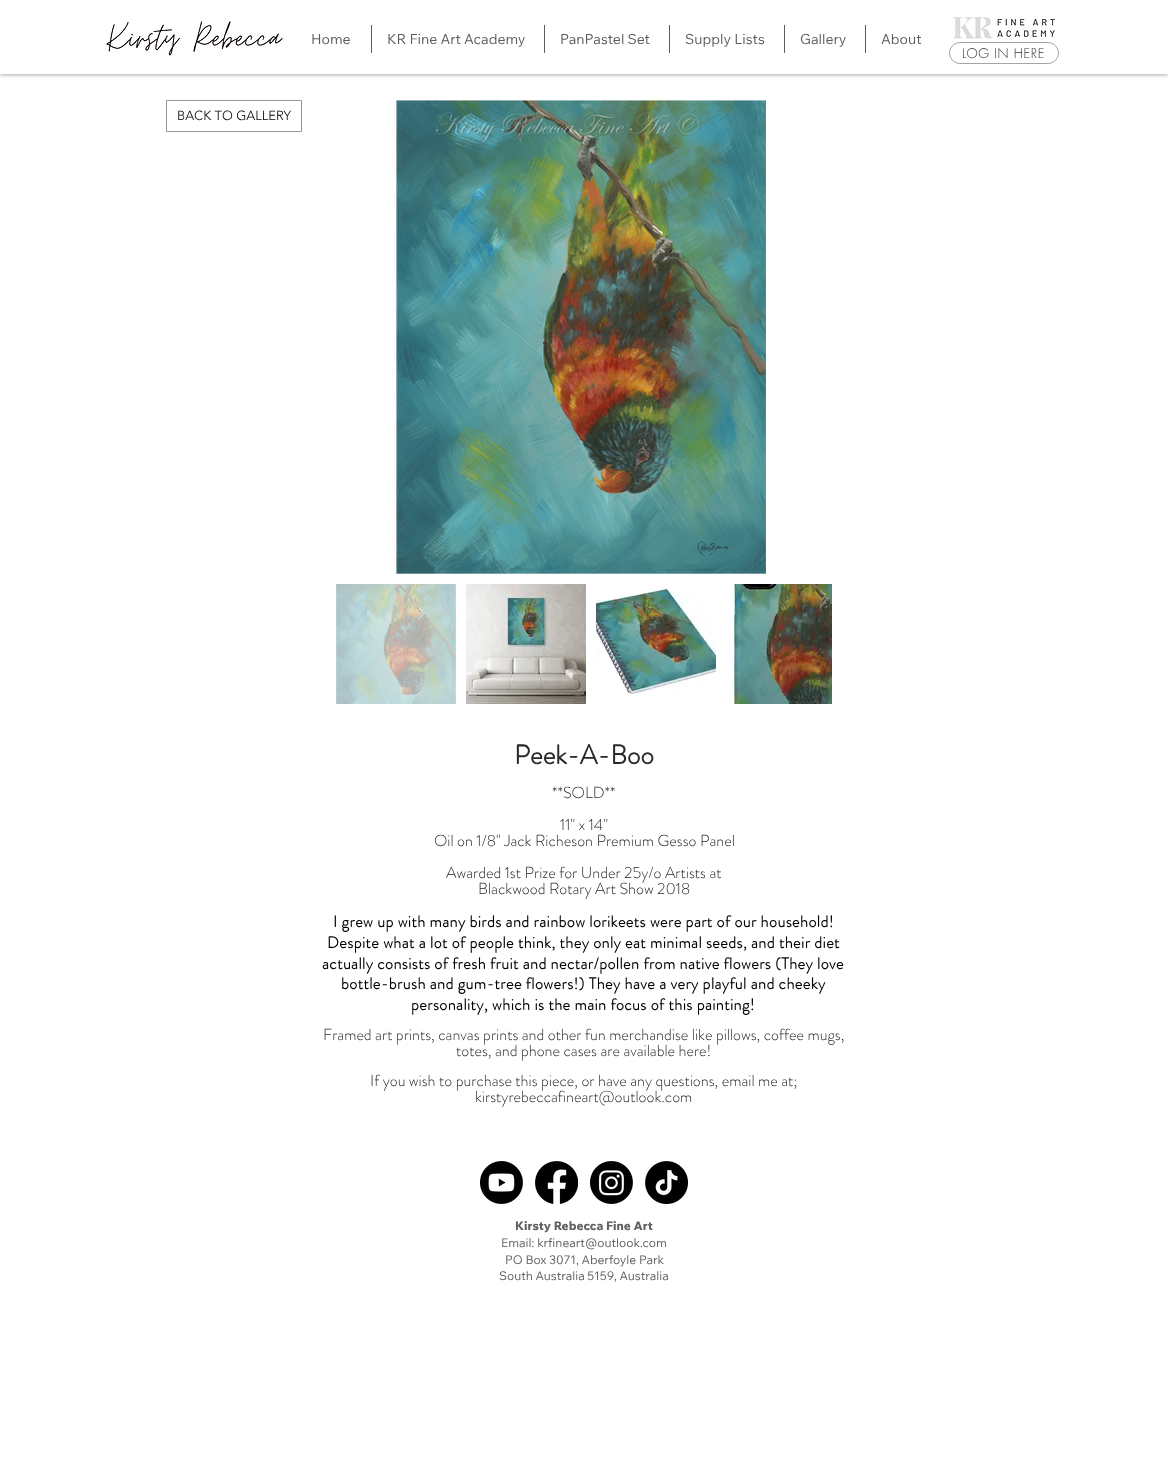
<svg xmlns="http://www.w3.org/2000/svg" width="1168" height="1479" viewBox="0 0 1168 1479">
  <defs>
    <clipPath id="clip1"><path d="M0 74h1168v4H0z"/></clipPath>
  </defs>
  <rect width="100%" height="100%" fill="#fff"/>
  <g clip-path="url(#clip1)">
    <path d="M0 0h1168v74H0z" fill="#00000080" filter="blur(2.5px)"/>
  </g>
  <image x="106" y="21" width="177" height="35" href="img/1.png"/>
  <path d="M371 25h1v28H371z" fill="#5f5a55"/>
  <path d="M544 25h1v28H544z" fill="#5f5a55"/>
  <path d="M669 25h1v28H669z" fill="#5f5a55"/>
  <path d="M784 25h1v28H784z" fill="#5f5a55"/>
  <path d="M865 25h1v28H865z" fill="#5f5a55"/>
  <image x="953" y="17" width="102" height="22" href="img/2.png"/>
  <rect x="949.5" y="42.5" width="109" height="21" rx="10.5" fill="none" stroke="#a6a4a4"/>
  <path d="M166.5 100.5h135v31H166.5z" fill="none" stroke="#969696"/>
  <image x="396" y="100" width="370" height="474" href="img/3.png"/>
  <image x="336" y="584" width="120" height="120" href="img/4.png"/>
  <image x="466" y="584" width="120" height="120" href="img/5.png"/>
  <image x="596" y="588" width="120" height="108" href="img/6.png"/>
  <image x="733" y="584" width="99" height="120" href="img/7.png"/>
  <image x="480" y="1161" width="43" height="43" href="img/8.png"/>
  <image x="535" y="1161" width="43" height="43" href="img/9.png"/>
  <image x="590" y="1161" width="43" height="43" href="img/10.png"/>
  <image x="645" y="1161" width="43" height="43" href="img/11.png"/>
  <g font-family="Wix Madefor Text" font-size="14" fill="#5f5a55">
    <text x="311" y="44">Home</text>
    <text x="387" y="44">KR Fine Art Academy</text>
    <text x="560" y="44">PanPastel Set</text>
    <text x="685" y="44">Supply Lists</text>
    <text x="800" y="44">Gallery</text>
    <text x="881" y="44">About</text>
  </g>
  <text x="962" y="58" font-family="futura" font-size="13" font-weight="300" letter-spacing="0.6" fill="#303030">LOG IN HERE</text>
  <text x="177" y="120" font-family="'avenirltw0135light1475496'" font-size="13" font-weight="300" fill="#000">BACK TO GALLERY</text>
  <text x="514" y="764" font-family="'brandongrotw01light'" font-size="27" font-weight="bold" fill="#292929">Peek-A-Boo</text>
  <g font-family="'brandongrotw01light'" font-size="16" font-weight="300" fill="#292929">
    <text x="552" y="798">**SOLD**</text>
    <text x="560" y="830">11" x 14"</text>
    <text x="434" y="846">Oil on 1/8" Jack Richeson Premium Gesso Panel</text>
    <text x="446" y="878">Awarded 1st Prize for Under 25y/o Artists at</text>
    <text x="478" y="894">Blackwood Rotary Art Show 2018</text>
  </g>
  <g font-family="'brandongrotw01light'" font-size="16" font-weight="bold" letter-spacing="0.48" fill="#000">
    <text x="333" y="927">I grew up with many birds and rainbow lorikeets were part of our household!</text>
    <text x="327" y="948">Despite what a lot of people think, they only eat minimal seeds, and their diet</text>
    <text x="322" y="969">actually consists of fresh fruit and nectar/pollen from native flowers (They love</text>
    <text x="341" y="989">bottle-brush and gum-tree flowers!) They have a very playful and cheeky</text>
    <text x="411" y="1010">personality, which is the main focus of this painting!</text>
  </g>
  <g font-family="'brandongrotw01light'" font-size="16" font-weight="300" fill="#292929">
    <text x="323" y="1040">Framed art prints, canvas prints and other fun merchandise like pillows, coffee mugs,</text>
    <text x="456" y="1056">totes, and phone cases are available here!</text>
    <text x="370" y="1086">If you wish to purchase this piece, or have any questions, email me at;</text>
    <text x="475" y="1102">kirstyrebeccafineart@outlook.com</text>
  </g>
  <text x="515" y="1230" font-family="Wix Madefor Text" font-size="12" font-weight="800" fill="#606060">Kirsty Rebecca Fine Art</text>
  <g font-family="Wix Madefor Text" font-size="12" fill="#606060">
    <text x="501" y="1247">Email: krfineart@outlook.com</text>
    <text x="505" y="1264">PO Box 3071, Aberfoyle Park</text>
    <text x="499" y="1280">South Australia 5159, Australia</text>
  </g>
</svg>
